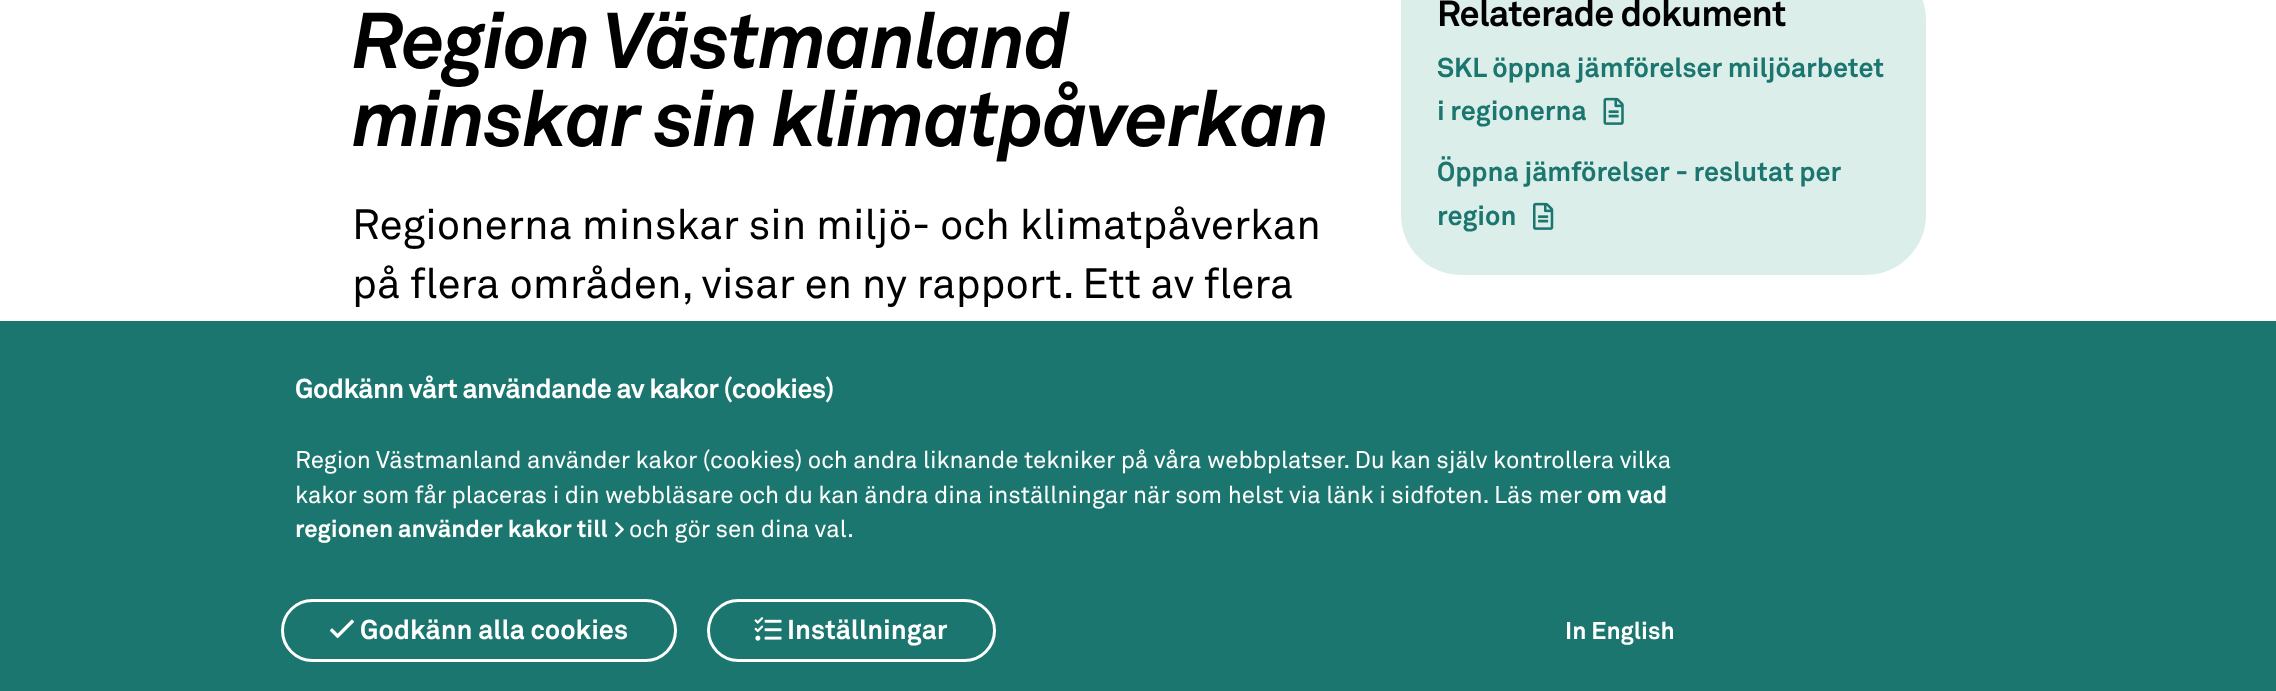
<svg xmlns="http://www.w3.org/2000/svg" width="2276" height="691" viewBox="0 0 2276 691">
  <rect width="100%" height="100%" fill="#fff"/>
  <path d="M1401-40H1866C1899-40 1926-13 1926 20V215C1926 248 1899 275 1866 275H1461C1428 275 1401 248 1401 215Z" fill="#dceeea"/>
  <image x="1603" y="97" width="21" height="28" href="img/1.png"/>
  <image x="1533" y="202" width="21" height="28" href="img/2.png"/>
  <path d="M0 321h2276v370H0z" fill="#1a766e"/>
  <image x="615" y="522" width="9" height="15" href="img/3.png"/>
  <rect x="282.5" y="600.5" width="393" height="60" rx="30" fill="none" stroke="#fff" stroke-width="3"/>
  <image x="330" y="619" width="24" height="20" href="img/4.png"/>
  <rect x="708.5" y="600.5" width="286" height="60" rx="30" fill="none" stroke="#fff" stroke-width="3"/>
  <image x="754" y="617" width="28" height="24" href="img/5.png"/>
  <g font-family="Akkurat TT" font-size="78" font-weight="bold" font-style="italic" letter-spacing="-1.55" fill="#000">
    <text x="352" y="68">Region Västmanland</text>
    <text x="352" y="146">minskar sin klimatpåverkan</text>
  </g>
  <g font-family="Akkurat TT" font-size="42" fill="#000">
    <text x="352" y="239">Regionerna minskar sin miljö- och klimatpåverkan</text>
    <text x="352" y="298">på flera områden, visar en ny rapport. Ett av flera</text>
  </g>
  <text x="1437" y="26" font-family="Akkurat TT" font-size="36" font-weight="bold" letter-spacing="-0.75" fill="#000">Relaterade dokument</text>
  <g font-family="Akkurat TT" font-size="27" font-weight="bold" fill="#1a766e">
    <text x="1437" y="77">SKL öppna jämförelser miljöarbetet</text>
    <text x="1437" y="120">i regionerna</text>
    <text x="1437" y="181">Öppna jämförelser - reslutat per</text>
    <text x="1437" y="225">region</text>
  </g>
  <text x="295" y="398" font-family="Akkurat TT" font-size="27" font-weight="bold" letter-spacing="-0.55" fill="#fff">Godkänn vårt användande av kakor (cookies)</text>
  <g font-family="Akkurat TT" font-size="24" fill="#fff">
    <text x="295" y="468">Region Västmanland använder kakor (cookies) och andra liknande tekniker på våra webbplatser. Du kan själv kontrollera vilka</text>
    <text x="295" y="503">kakor som får placeras i din webbläsare och du kan ändra dina inställningar när som helst via länk i sidfoten. Läs mer</text>
  </g>
  <g font-family="Akkurat TT" font-size="24" font-weight="bold" fill="#fff">
    <text x="1587" y="503">om vad</text>
    <text x="295" y="537">regionen använder kakor till</text>
  </g>
  <text x="629" y="537" font-family="Akkurat TT" font-size="24" fill="#fff">och gör sen dina val.</text>
  <g font-family="Akkurat TT" font-size="27" font-weight="bold" fill="#fff">
    <text x="360" y="639">Godkänn alla cookies</text>
    <text x="787" y="639">Inställningar</text>
  </g>
  <text x="1565" y="639" font-family="Akkurat TT" font-size="24" font-weight="bold" fill="#fff">In English</text>
</svg>
